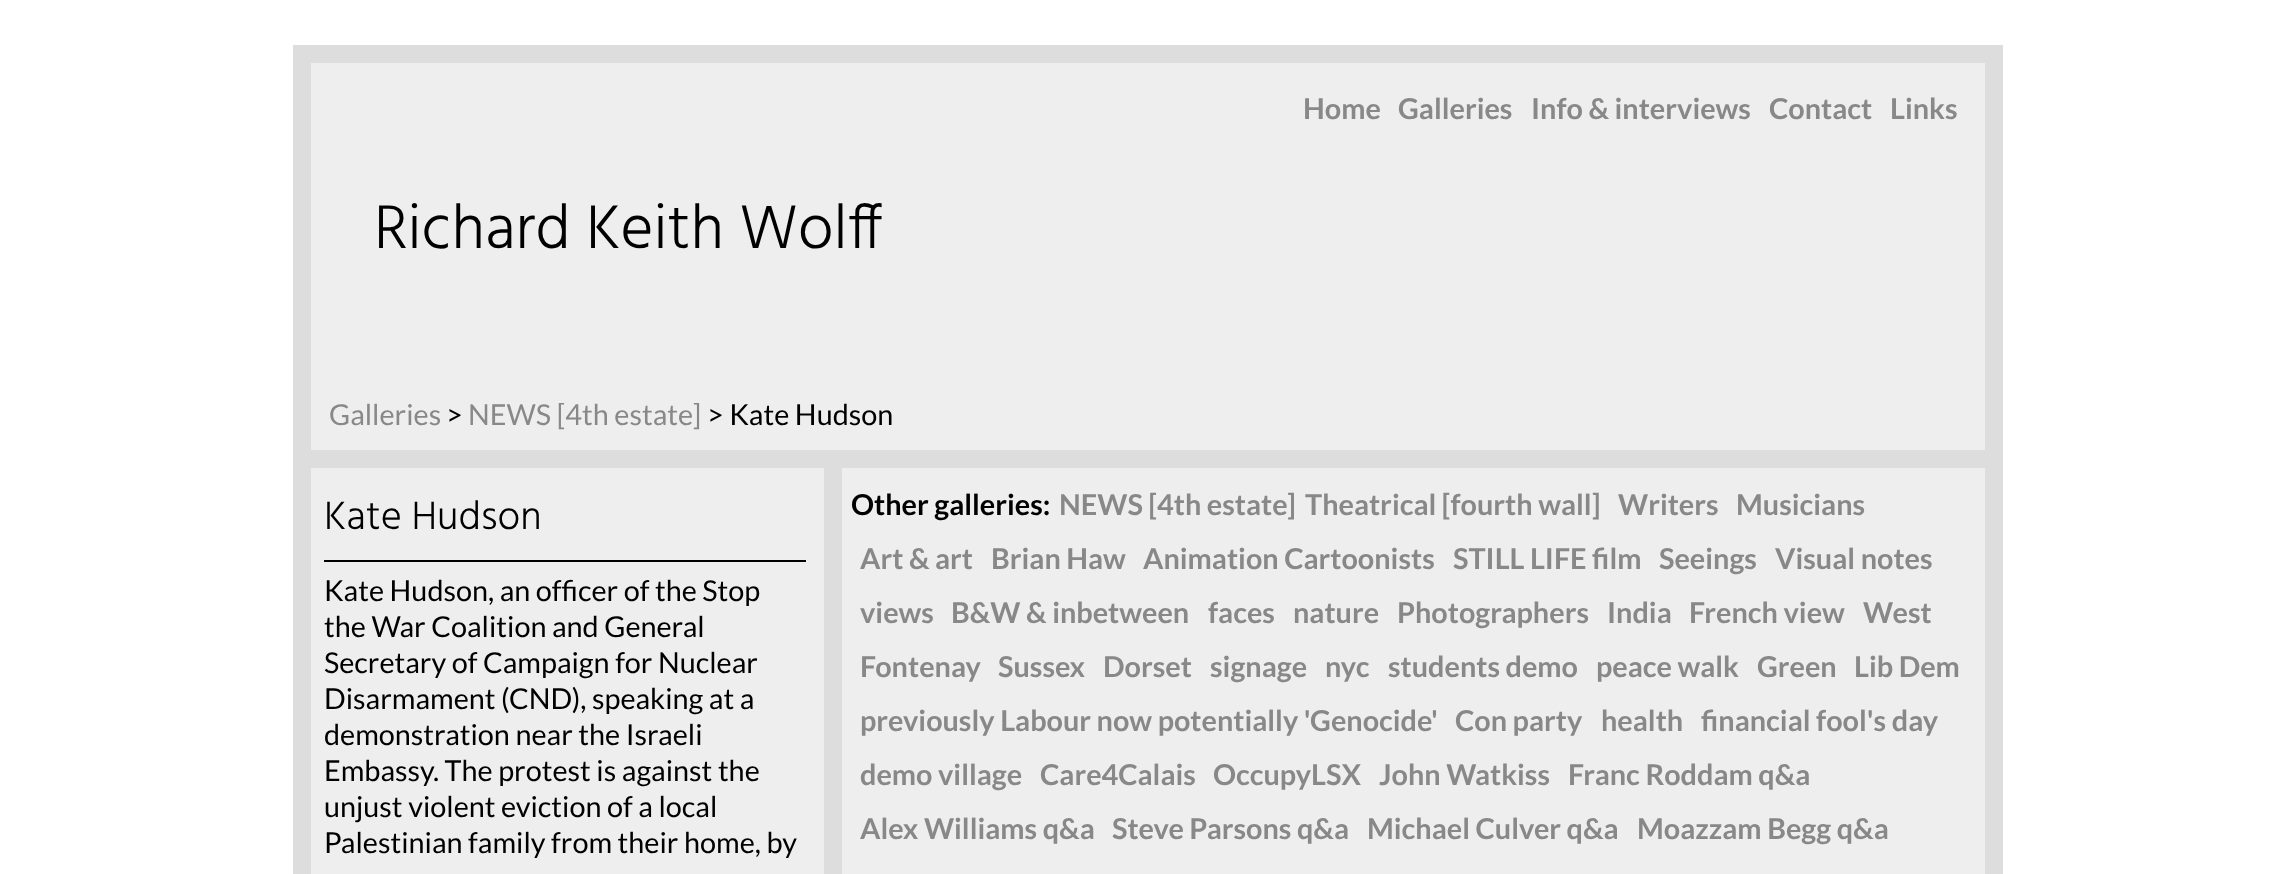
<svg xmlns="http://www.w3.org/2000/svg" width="2294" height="874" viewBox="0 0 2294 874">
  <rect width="100%" height="100%" fill="#fff"/>
  <path d="M311 63h1674v387H311z" fill="#eee"/>
  <path d="M311 45h1674v18H311z" fill="#ddd"/>
  <path d="M1985 45h18v829H1985z" fill="#ddd"/>
  <path d="M293 45h18v829H293z" fill="#ddd"/>
  <path d="M311 468h1674v406H311z" fill="#eee"/>
  <path d="M311 450h513v18H311z" fill="#ddd"/>
  <path d="M824 450h18v424H824z" fill="#ddd"/>
  <path d="M324 560h482v2H324z" fill="#000"/>
  <path d="M842 450h1143v18H842z" fill="#ddd"/>
  <g font-family="Lato" font-size="28.8" font-weight="bold" fill="#888">
    <text x="1303" y="119">Home</text>
    <text x="1398" y="119">Galleries</text>
    <text x="1531" y="119">Info &amp; interviews</text>
    <text x="1769" y="119">Contact</text>
    <text x="1890" y="119">Links</text>
  </g>
  <text x="374" y="248" font-family="Hind" font-size="63.25" font-weight="300" fill="#000">Richard Keith Wolff</text>
  <text x="329" y="425" font-family="Lato" font-size="28.8" fill="#888">Galleries</text>
  <text x="446" y="425" font-family="Lato" font-size="28.8" fill="#000">&gt;</text>
  <text x="468" y="425" font-family="Lato" font-size="28.8" fill="#888">NEWS [4th estate]</text>
  <text x="707" y="425" font-family="Lato" font-size="28.8" fill="#000">&gt; Kate Hudson</text>
  <text x="324" y="529" font-family="Hind" font-size="40.5" font-weight="300" fill="#000">Kate Hudson</text>
  <g font-family="Lato" font-size="28.8" fill="#000">
    <text x="324" y="601">Kate Hudson, an officer of the Stop</text>
    <text x="324" y="637">the War Coalition and General</text>
    <text x="324" y="673">Secretary of Campaign for Nuclear</text>
    <text x="324" y="709">Disarmament (CND), speaking at a</text>
    <text x="324" y="745">demonstration near the Israeli</text>
    <text x="324" y="781">Embassy. The protest is against the</text>
    <text x="324" y="817">unjust violent eviction of a local</text>
    <text x="324" y="853">Palestinian family from their home, by</text>
  </g>
  <text x="851" y="515" font-family="Lato" font-size="28.8" font-weight="bold" fill="#000">Other galleries:</text>
  <g font-family="Lato" font-size="28.8" font-weight="bold" fill="#888">
    <text x="1059" y="515">NEWS [4th estate]</text>
    <text x="1305" y="515">Theatrical [fourth wall]</text>
    <text x="1618" y="515">Writers</text>
    <text x="1736" y="515">Musicians</text>
    <text x="860" y="569">Art &amp; art</text>
    <text x="991" y="569">Brian Haw</text>
    <text x="1143" y="569">Animation Cartoonists</text>
    <text x="1453" y="569">STILL LIFE film</text>
    <text x="1659" y="569">Seeings</text>
    <text x="1775" y="569">Visual notes</text>
    <text x="860" y="623">views</text>
    <text x="951" y="623">B&amp;W &amp; inbetween</text>
    <text x="1208" y="623">faces</text>
    <text x="1293" y="623">nature</text>
    <text x="1397" y="623">Photographers</text>
    <text x="1607" y="623">India</text>
    <text x="1689" y="623">French view</text>
    <text x="1863" y="623">West</text>
    <text x="860" y="677">Fontenay</text>
    <text x="998" y="677">Sussex</text>
    <text x="1103" y="677">Dorset</text>
    <text x="1210" y="677">signage</text>
    <text x="1325" y="677">nyc</text>
    <text x="1388" y="677">students demo</text>
    <text x="1596" y="677">peace walk</text>
    <text x="1757" y="677">Green</text>
    <text x="1854" y="677">Lib Dem</text>
    <text x="860" y="731">previously Labour now potentially 'Genocide'</text>
    <text x="1455" y="731">Con party</text>
    <text x="1601" y="731">health</text>
    <text x="1701" y="731">financial fool's day</text>
    <text x="860" y="785">demo village</text>
    <text x="1040" y="785">Care4Calais</text>
    <text x="1213" y="785">OccupyLSX</text>
    <text x="1379" y="785">John Watkiss</text>
    <text x="1568" y="785">Franc Roddam q&amp;a</text>
    <text x="860" y="839">Alex Williams q&amp;a</text>
    <text x="1112" y="839">Steve Parsons q&amp;a</text>
    <text x="1367" y="839">Michael Culver q&amp;a</text>
    <text x="1637" y="839">Moazzam Begg q&amp;a</text>
  </g>
</svg>
